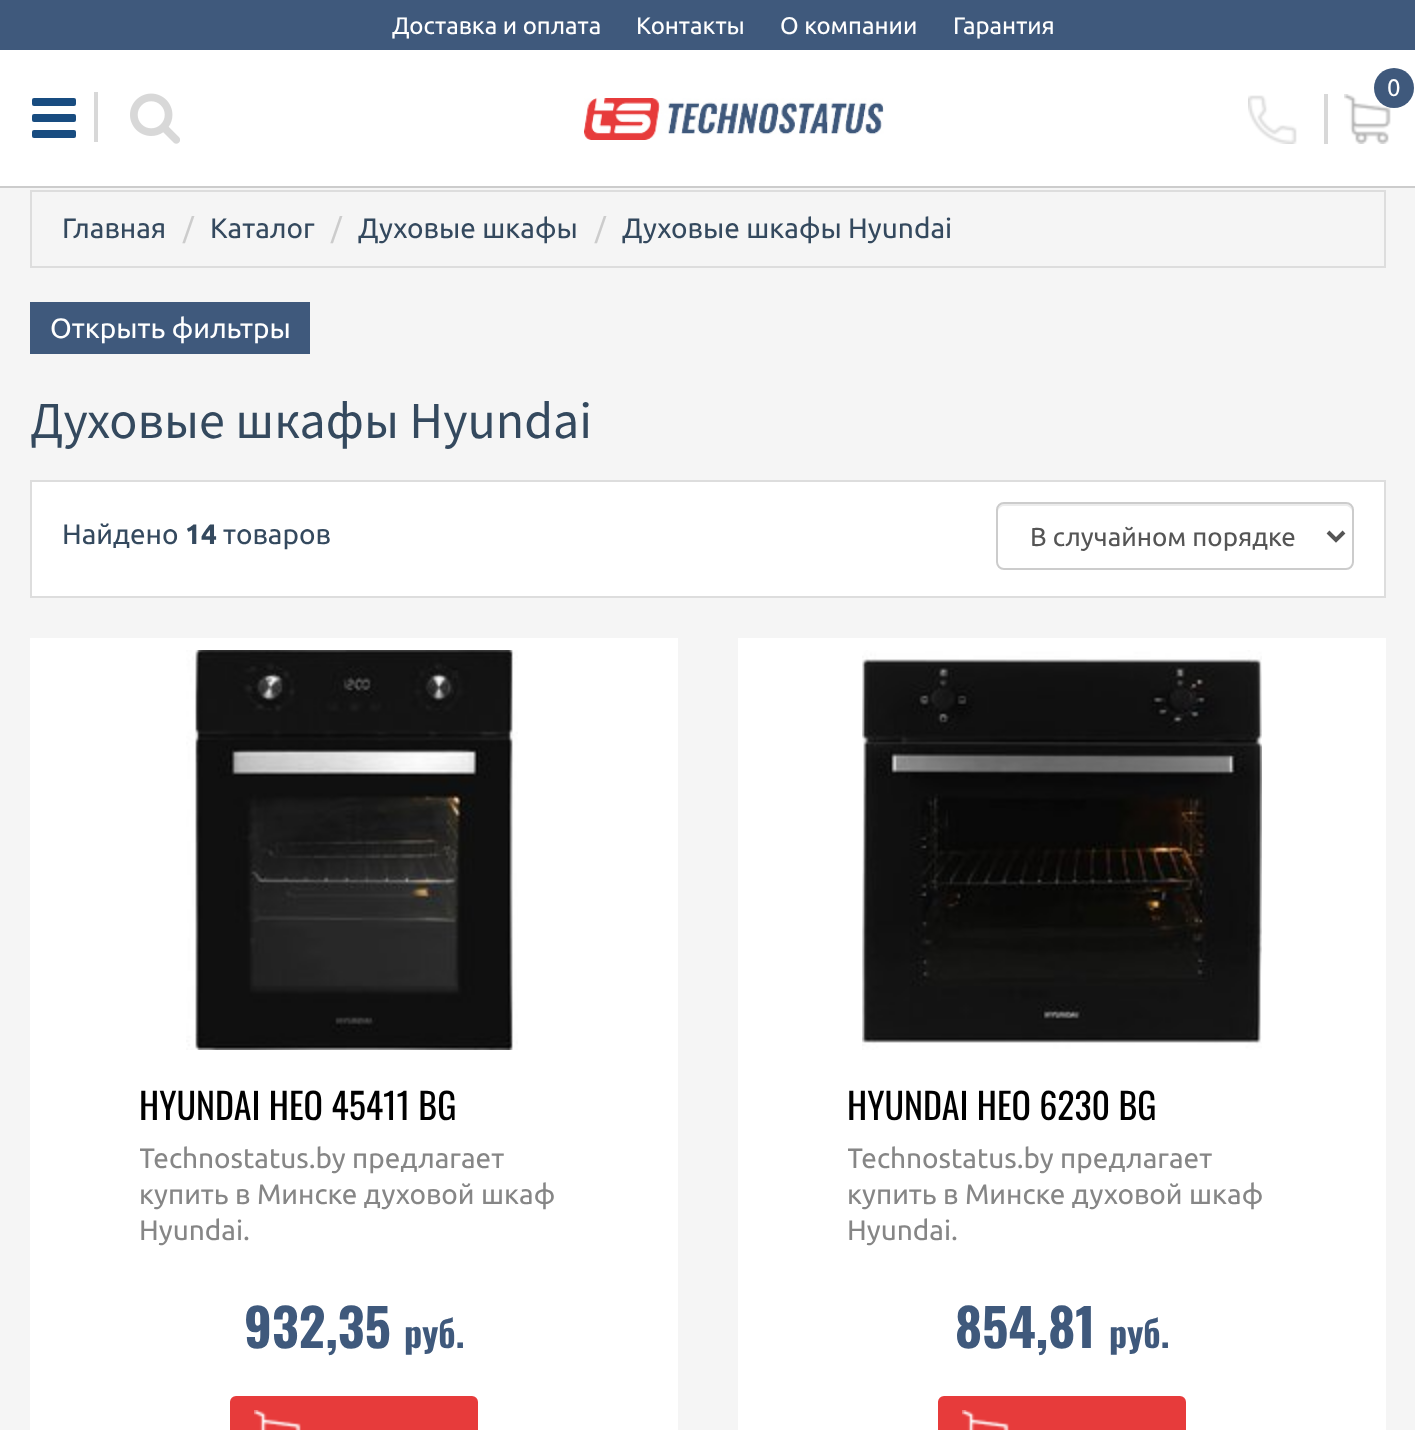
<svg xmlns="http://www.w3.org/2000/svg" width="1415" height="1430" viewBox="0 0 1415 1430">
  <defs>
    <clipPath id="clip1"><path d="M140 1140h430v110H140z"/></clipPath>
    <clipPath id="clip2"><path d="M848 1140h430v110H848z"/></clipPath>
  </defs>
  <rect width="100%" height="100%" fill="#f5f5f5"/>
  <path d="M0 50h1415v136H0z" fill="#fff"/>
  <path d="M0 186h1415v2H0z" fill="#ccc"/>
  <path d="M0 0h1415v50H0z" fill="#3f597c"/>
  <image x="1344" y="94" width="47" height="50" href="img/1.png"/>
  <circle cx="1394" cy="88" r="20" fill="#3f597c"/>
  <path d="M1324 94h4v50H1324z" fill="#d8d8d8"/>
  <rect x="32" y="98" width="44" height="8" rx="2" fill="#184c80"/>
  <path d="M94 92h4v50H94z" fill="#d8d8d8"/>
  <rect x="32" y="114" width="44" height="8" rx="2" fill="#184c80"/>
  <rect x="32" y="130" width="44" height="8" rx="2" fill="#184c80"/>
  <image x="130" y="93" width="50" height="51" href="img/2.png"/>
  <image x="584" y="98" width="300" height="42" href="img/3.png"/>
  <image x="1248" y="95" width="49" height="49" href="img/4.png"/>
  <path d="M31 191h1354v76H31z" fill="none" stroke="#ddd" stroke-width="2"/>
  <path d="M30 302h280v52H30z" fill="#3f597c"/>
  <path d="M31 481h1354v116H31z" fill="#fff" stroke="#ddd" stroke-width="2"/>
  <path d="M1004 506H1346C1349 506 1352 509 1352 512V510C1352 507 1349 504 1346 504H1004C1001 504 998 507 998 510V512C998 509 1001 506 1004 506Z" fill="#ececec"/>
  <rect x="997" y="503" width="356" height="66" rx="7" fill="none" stroke="#ccc" stroke-width="2"/>
  <path d="M1328 532L1336 540L1344 532" fill="none" stroke="#555" stroke-width="4"/>
  <path d="M30 638h648v792H30z" fill="#fff"/>
  <image x="186" y="650" width="332" height="400" href="img/5.png"/>
  <rect x="231" y="1397" width="246" height="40" rx="5" fill="#e73b3b" stroke="#e73b3b" stroke-width="2"/>
  <image x="254" y="1410" width="47" height="20" href="img/6.png"/>
  <path d="M738 638h648v792H738z" fill="#fff"/>
  <image x="862" y="650" width="400" height="400" href="img/7.png"/>
  <rect x="939" y="1397" width="246" height="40" rx="5" fill="#e73b3b" stroke="#e73b3b" stroke-width="2"/>
  <image x="962" y="1410" width="47" height="20" href="img/6.png"/>
  <g font-family="Ubuntu" font-size="24" fill="#fff">
    <text x="392" y="34">Доставка и оплата</text>
    <text x="636" y="34">Контакты</text>
    <text x="780" y="34">О компании</text>
    <text x="953" y="34">Гарантия</text>
    <text x="1387" y="96">0</text>
  </g>
  <text x="62" y="238" font-family="Ubuntu" font-size="28" fill="#34495e">Главная</text>
  <text x="183" y="238" font-family="Ubuntu" font-size="28" fill="#ccc">/</text>
  <text x="210" y="238" font-family="Ubuntu" font-size="28" fill="#34495e">Каталог</text>
  <text x="331" y="238" font-family="Ubuntu" font-size="28" fill="#ccc">/</text>
  <text x="358" y="238" font-family="Ubuntu" font-size="28" fill="#34495e">Духовые шкафы</text>
  <text x="595" y="238" font-family="Ubuntu" font-size="28" fill="#ccc">/</text>
  <text x="622" y="238" font-family="Ubuntu" font-size="28" fill="#34495e">Духовые шкафы Hyundai</text>
  <text x="50" y="338" font-family="Ubuntu" font-size="28" fill="#fff">Открыть фильтры</text>
  <text x="30" y="438" font-family="Source Sans Pro" font-size="52" fill="#34495e">Духовые шкафы Hyundai</text>
  <text x="62" y="544" font-family="Ubuntu" font-size="28" fill="#34495e">Найдено</text>
  <text x="185" y="544" font-family="Ubuntu" font-size="28" font-weight="bold" fill="#34495e">14</text>
  <text x="223" y="544" font-family="Ubuntu" font-size="28" fill="#34495e">товаров</text>
  <text x="1030" y="546" font-family="Ubuntu" font-size="26" fill="#555">В случайном порядке</text>
  <text x="139" y="1120" font-family="Oswald" font-size="36" fill="#000">HYUNDAI HEO 45411 BG</text>
  <g clip-path="url(#clip1)">
    <text x="139" y="1168" font-family="Ubuntu" font-size="28" fill="#868686">Technostatus.by предлагает</text>
  </g>
  <g font-family="Ubuntu" font-size="28" fill="#868686">
    <text x="139" y="1204">купить в Минске духовой шкаф</text>
    <text x="139" y="1240">Hyundai.</text>
  </g>
  <text x="244" y="1348" font-family="Oswald" font-size="52" font-weight="bold" fill="#3f597c">932,35</text>
  <text x="404" y="1348" font-family="Oswald" font-size="36" font-weight="bold" fill="#3f597c">руб.</text>
  <text x="847" y="1120" font-family="Oswald" font-size="36" fill="#000">HYUNDAI HEO 6230 BG</text>
  <g clip-path="url(#clip2)">
    <text x="847" y="1168" font-family="Ubuntu" font-size="28" fill="#868686">Technostatus.by предлагает</text>
  </g>
  <g font-family="Ubuntu" font-size="28" fill="#868686">
    <text x="847" y="1204">купить в Минске духовой шкаф</text>
    <text x="847" y="1240">Hyundai.</text>
  </g>
  <text x="955" y="1348" font-family="Oswald" font-size="52" font-weight="bold" fill="#3f597c">854,81</text>
  <text x="1109" y="1348" font-family="Oswald" font-size="36" font-weight="bold" fill="#3f597c">руб.</text>
</svg>
